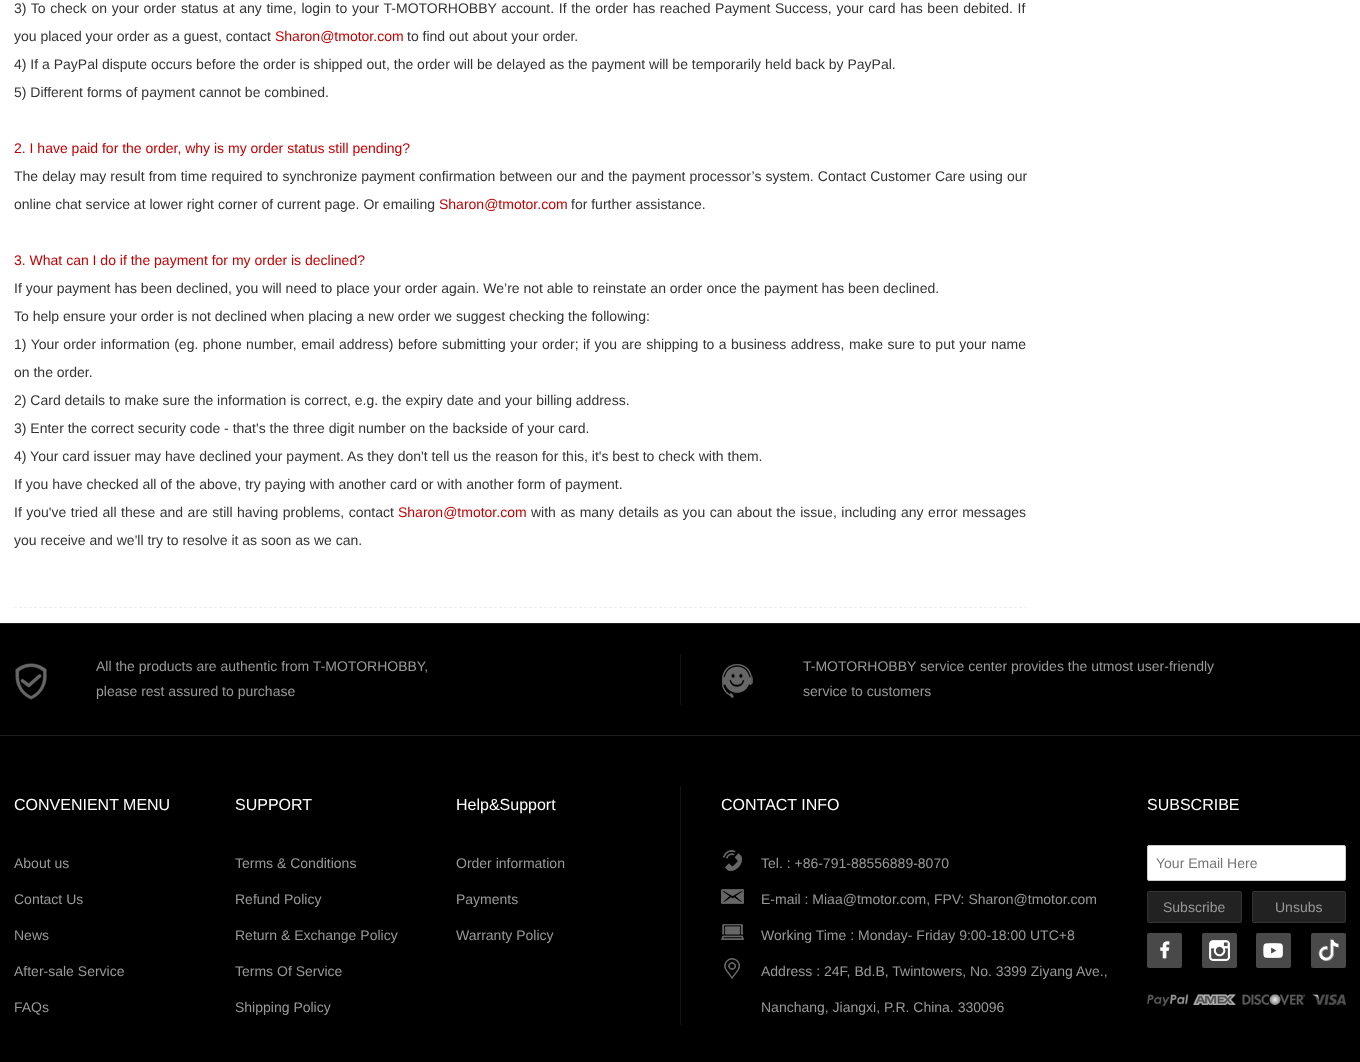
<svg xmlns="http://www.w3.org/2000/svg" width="1360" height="1062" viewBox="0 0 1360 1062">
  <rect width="100%" height="100%" fill="#fff"/>
  <path d="M14 607.5H1026" fill="none" stroke="#eee" stroke-dasharray="3 2"/>
  <path d="M0 624h1360v438H0z" fill="#000"/>
  <path d="M0 623h1360v1H0z" fill="#1c1c1c"/>
  <path d="M0 735h1360v1H0z" fill="#1c1c1c"/>
  <image x="15" y="663" width="32" height="37" href="img/1.png"/>
  <path d="M680 654h1v51H680z" fill="#131313"/>
  <image x="722" y="664" width="31" height="34" href="img/2.png"/>
  <path d="M680 786h1v239H680z" fill="#131313"/>
  <image x="723" y="850" width="19" height="21" href="img/3.png"/>
  <image x="721" y="889" width="23" height="15" href="img/4.png"/>
  <image x="721" y="924" width="23" height="16" href="img/5.png"/>
  <image x="724" y="958" width="16" height="21" href="img/6.png"/>
  <rect x="1147.5" y="845.5" width="198" height="35" rx="1.5" fill="#fff" stroke="#ccc"/>
  <rect x="1147.5" y="891.5" width="94" height="31" rx="1.5" fill="#222" stroke="#333"/>
  <rect x="1252.5" y="891.5" width="93" height="31" rx="1.5" fill="#222" stroke="#333"/>
  <image x="1147" y="933" width="35" height="35" href="img/7.png"/>
  <image x="1202" y="933" width="35" height="35" href="img/8.png"/>
  <image x="1256" y="933" width="35" height="35" href="img/9.png"/>
  <image x="1311" y="933" width="35" height="35" href="img/10.png"/>
  <image x="1147" y="994" width="199" height="13" href="img/11.png"/>
  <g font-family="Liberation Sans" font-size="14" fill="#333">
    <text x="14" y="13" word-spacing="0.75">3) To check on your order status at any time, login to your T-MOTORHOBBY account. If the order has reached Payment Success, your card has been debited. If</text>
    <text x="14" y="41">you placed your order as a guest, contact</text>
  </g>
  <text x="275" y="41" font-family="Liberation Sans" font-size="14" fill="#c00000">Sharon@tmotor.com</text>
  <g font-family="Liberation Sans" font-size="14" fill="#333">
    <text x="407" y="41">to find out about your order.</text>
    <text x="14" y="69">4) If a PayPal dispute occurs before the order is shipped out, the order will be delayed as the payment will be temporarily held back by PayPal.</text>
    <text x="14" y="97">5) Different forms of payment cannot be combined.</text>
  </g>
  <text x="14" y="153" font-family="Liberation Sans" font-size="14" fill="#c00000">2. I have paid for the order, why is my order status still pending?</text>
  <g font-family="Liberation Sans" font-size="14" fill="#333">
    <text x="14" y="181" word-spacing="0.2">The delay may result from time required to synchronize payment confirmation between our and the payment processor’s system. Contact Customer Care using our</text>
    <text x="14" y="209">online chat service at lower right corner of current page. Or emailing</text>
  </g>
  <text x="439" y="209" font-family="Liberation Sans" font-size="14" fill="#c00000">Sharon@tmotor.com</text>
  <text x="571" y="209" font-family="Liberation Sans" font-size="14" fill="#333">for further assistance.</text>
  <text x="14" y="265" font-family="Liberation Sans" font-size="14" fill="#c00000">3. What can I do if the payment for my order is declined?</text>
  <g font-family="Liberation Sans" font-size="14" fill="#333">
    <text x="14" y="293">If your payment has been declined, you will need to place your order again. We’re not able to reinstate an order once the payment has been declined.</text>
    <text x="14" y="321">To help ensure your order is not declined when placing a new order we suggest checking the following:</text>
    <text x="14" y="349" word-spacing="0.55">1) Your order information (eg. phone number, email address) before submitting your order; if you are shipping to a business address, make sure to put your name</text>
    <text x="14" y="377">on the order.</text>
    <text x="14" y="405">2) Card details to make sure the information is correct, e.g. the expiry date and your billing address.</text>
    <text x="14" y="433">3) Enter the correct security code - that's the three digit number on the backside of your card.</text>
    <text x="14" y="461">4) Your card issuer may have declined your payment. As they don't tell us the reason for this, it's best to check with them.</text>
    <text x="14" y="489">If you have checked all of the above, try paying with another card or with another form of payment.</text>
    <text x="14" y="517" word-spacing="0.6">If you've tried all these and are still having problems, contact</text>
  </g>
  <text x="398" y="517" font-family="Liberation Sans" font-size="14" fill="#c00000">Sharon@tmotor.com</text>
  <g font-family="Liberation Sans" font-size="14" fill="#333">
    <text x="531" y="517" word-spacing="0.6">with as many details as you can about the issue, including any error messages</text>
    <text x="14" y="545">you receive and we'll try to resolve it as soon as we can.</text>
  </g>
  <g font-family="Liberation Sans" font-size="14" fill="#999">
    <text x="96" y="671">All the products are authentic from T-MOTORHOBBY,</text>
    <text x="96" y="696">please rest assured to purchase</text>
    <text x="803" y="671">T-MOTORHOBBY service center provides the utmost user-friendly</text>
    <text x="803" y="696">service to customers</text>
  </g>
  <text x="14" y="810" font-family="Liberation Sans" font-size="16" fill="#fff">CONVENIENT MENU</text>
  <g font-family="Liberation Sans" font-size="14" fill="#999">
    <text x="14" y="868">About us</text>
    <text x="14" y="904">Contact Us</text>
    <text x="14" y="940">News</text>
    <text x="14" y="976">After-sale Service</text>
    <text x="14" y="1012">FAQs</text>
  </g>
  <text x="235" y="810" font-family="Liberation Sans" font-size="16" fill="#fff">SUPPORT</text>
  <g font-family="Liberation Sans" font-size="14" fill="#999">
    <text x="235" y="868">Terms &amp; Conditions</text>
    <text x="235" y="904">Refund Policy</text>
    <text x="235" y="940">Return &amp; Exchange Policy</text>
    <text x="235" y="976">Terms Of Service</text>
    <text x="235" y="1012">Shipping Policy</text>
  </g>
  <text x="456" y="810" font-family="Liberation Sans" font-size="16" fill="#fff">Help&amp;Support</text>
  <g font-family="Liberation Sans" font-size="14" fill="#999">
    <text x="456" y="868">Order information</text>
    <text x="456" y="904">Payments</text>
    <text x="456" y="940">Warranty Policy</text>
  </g>
  <text x="721" y="810" font-family="Liberation Sans" font-size="16" fill="#fff">CONTACT INFO</text>
  <g font-family="Liberation Sans" font-size="14" fill="#999">
    <text x="761" y="868">Tel. : +86-791-88556889-8070</text>
    <text x="761" y="904">E-mail : Miaa@tmotor.com, FPV: Sharon@tmotor.com</text>
    <text x="761" y="940">Working Time : Monday- Friday 9:00-18:00 UTC+8</text>
    <text x="761" y="976">Address : 24F, Bd.B, Twintowers, No. 3399 Ziyang Ave.,</text>
    <text x="761" y="1012">Nanchang, Jiangxi, P.R. China. 330096</text>
  </g>
  <text x="1147" y="810" font-family="Liberation Sans" font-size="16" fill="#fff">SUBSCRIBE</text>
  <text x="1156" y="868" font-family="Liberation Sans" font-size="14" fill="#757575">Your Email Here</text>
  <g font-family="Liberation Sans" font-size="14" fill="#999">
    <text x="1163" y="912">Subscribe</text>
    <text x="1275" y="912">Unsubs</text>
  </g>
</svg>
